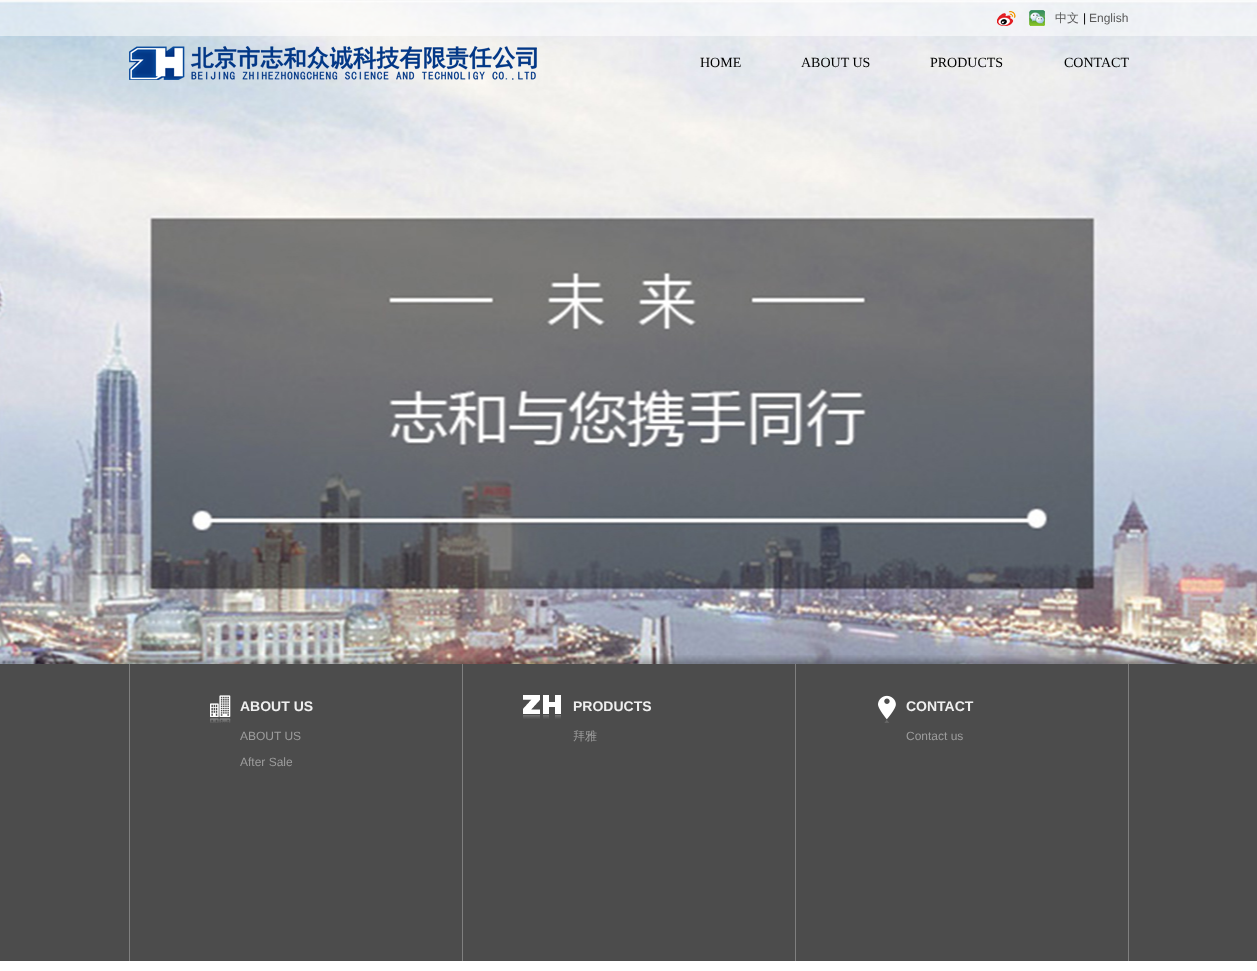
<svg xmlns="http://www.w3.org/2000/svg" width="1257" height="971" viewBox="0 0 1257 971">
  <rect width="100%" height="100%" fill="#fff"/>
  <image x="0" y="0" width="1257" height="664" href="img/1.png"/>
  <path d="M0 0h1257v36H0z" fill="#ffffff80"/>
  <image x="997" y="11" width="19" height="15" href="img/2.png"/>
  <image x="1029" y="10" width="16" height="16" href="img/3.png"/>
  <image x="129" y="46" width="408" height="34" href="img/4.png"/>
  <image x="0" y="655" width="1257" height="9" href="img/5.png"/>
  <path d="M0 664h1257v297H0z" fill="#4c4c4c"/>
  <path d="M462 664h1v297H462z" fill="#7f7f7f"/>
  <path d="M129 664h1v297H129z" fill="#7f7f7f"/>
  <image x="210" y="695" width="21" height="28" href="img/6.png"/>
  <path d="M795 664h1v297H795z" fill="#7f7f7f"/>
  <image x="523" y="695" width="38" height="24" href="img/7.png"/>
  <path d="M1128 664h1v297H1128z" fill="#7f7f7f"/>
  <image x="878" y="695" width="18" height="28" href="img/8.png"/>
  <text x="1055" y="22" font-family="WenQuanYi Zen Hei" font-size="12" font-weight="500" fill="#585858">中文</text>
  <text x="1083" y="22" font-family="Liberation Sans" font-size="12" fill="#000">|</text>
  <text x="1089" y="22" font-family="Liberation Sans" font-size="12" fill="#585858">English</text>
  <g font-family="Liberation Serif" font-size="14" fill="#000">
    <text x="700" y="67">HOME</text>
    <text x="801" y="67">ABOUT US</text>
    <text x="930" y="67">PRODUCTS</text>
    <text x="1064" y="67">CONTACT</text>
  </g>
  <text x="240" y="711" font-family="Liberation Sans" font-size="14" font-weight="bold" fill="#efefef">ABOUT US</text>
  <g font-family="Liberation Sans" font-size="12" fill="#9d9d9d">
    <text x="240" y="740">ABOUT US</text>
    <text x="240" y="766">After Sale</text>
  </g>
  <text x="573" y="711" font-family="Liberation Sans" font-size="14" font-weight="bold" fill="#efefef">PRODUCTS</text>
  <text x="573" y="740" font-family="WenQuanYi Zen Hei" font-size="12" font-weight="500" fill="#9d9d9d">拜雅</text>
  <text x="906" y="711" font-family="Liberation Sans" font-size="14" font-weight="bold" fill="#efefef">CONTACT</text>
  <text x="906" y="740" font-family="Liberation Sans" font-size="12" fill="#9d9d9d">Contact us</text>
</svg>
